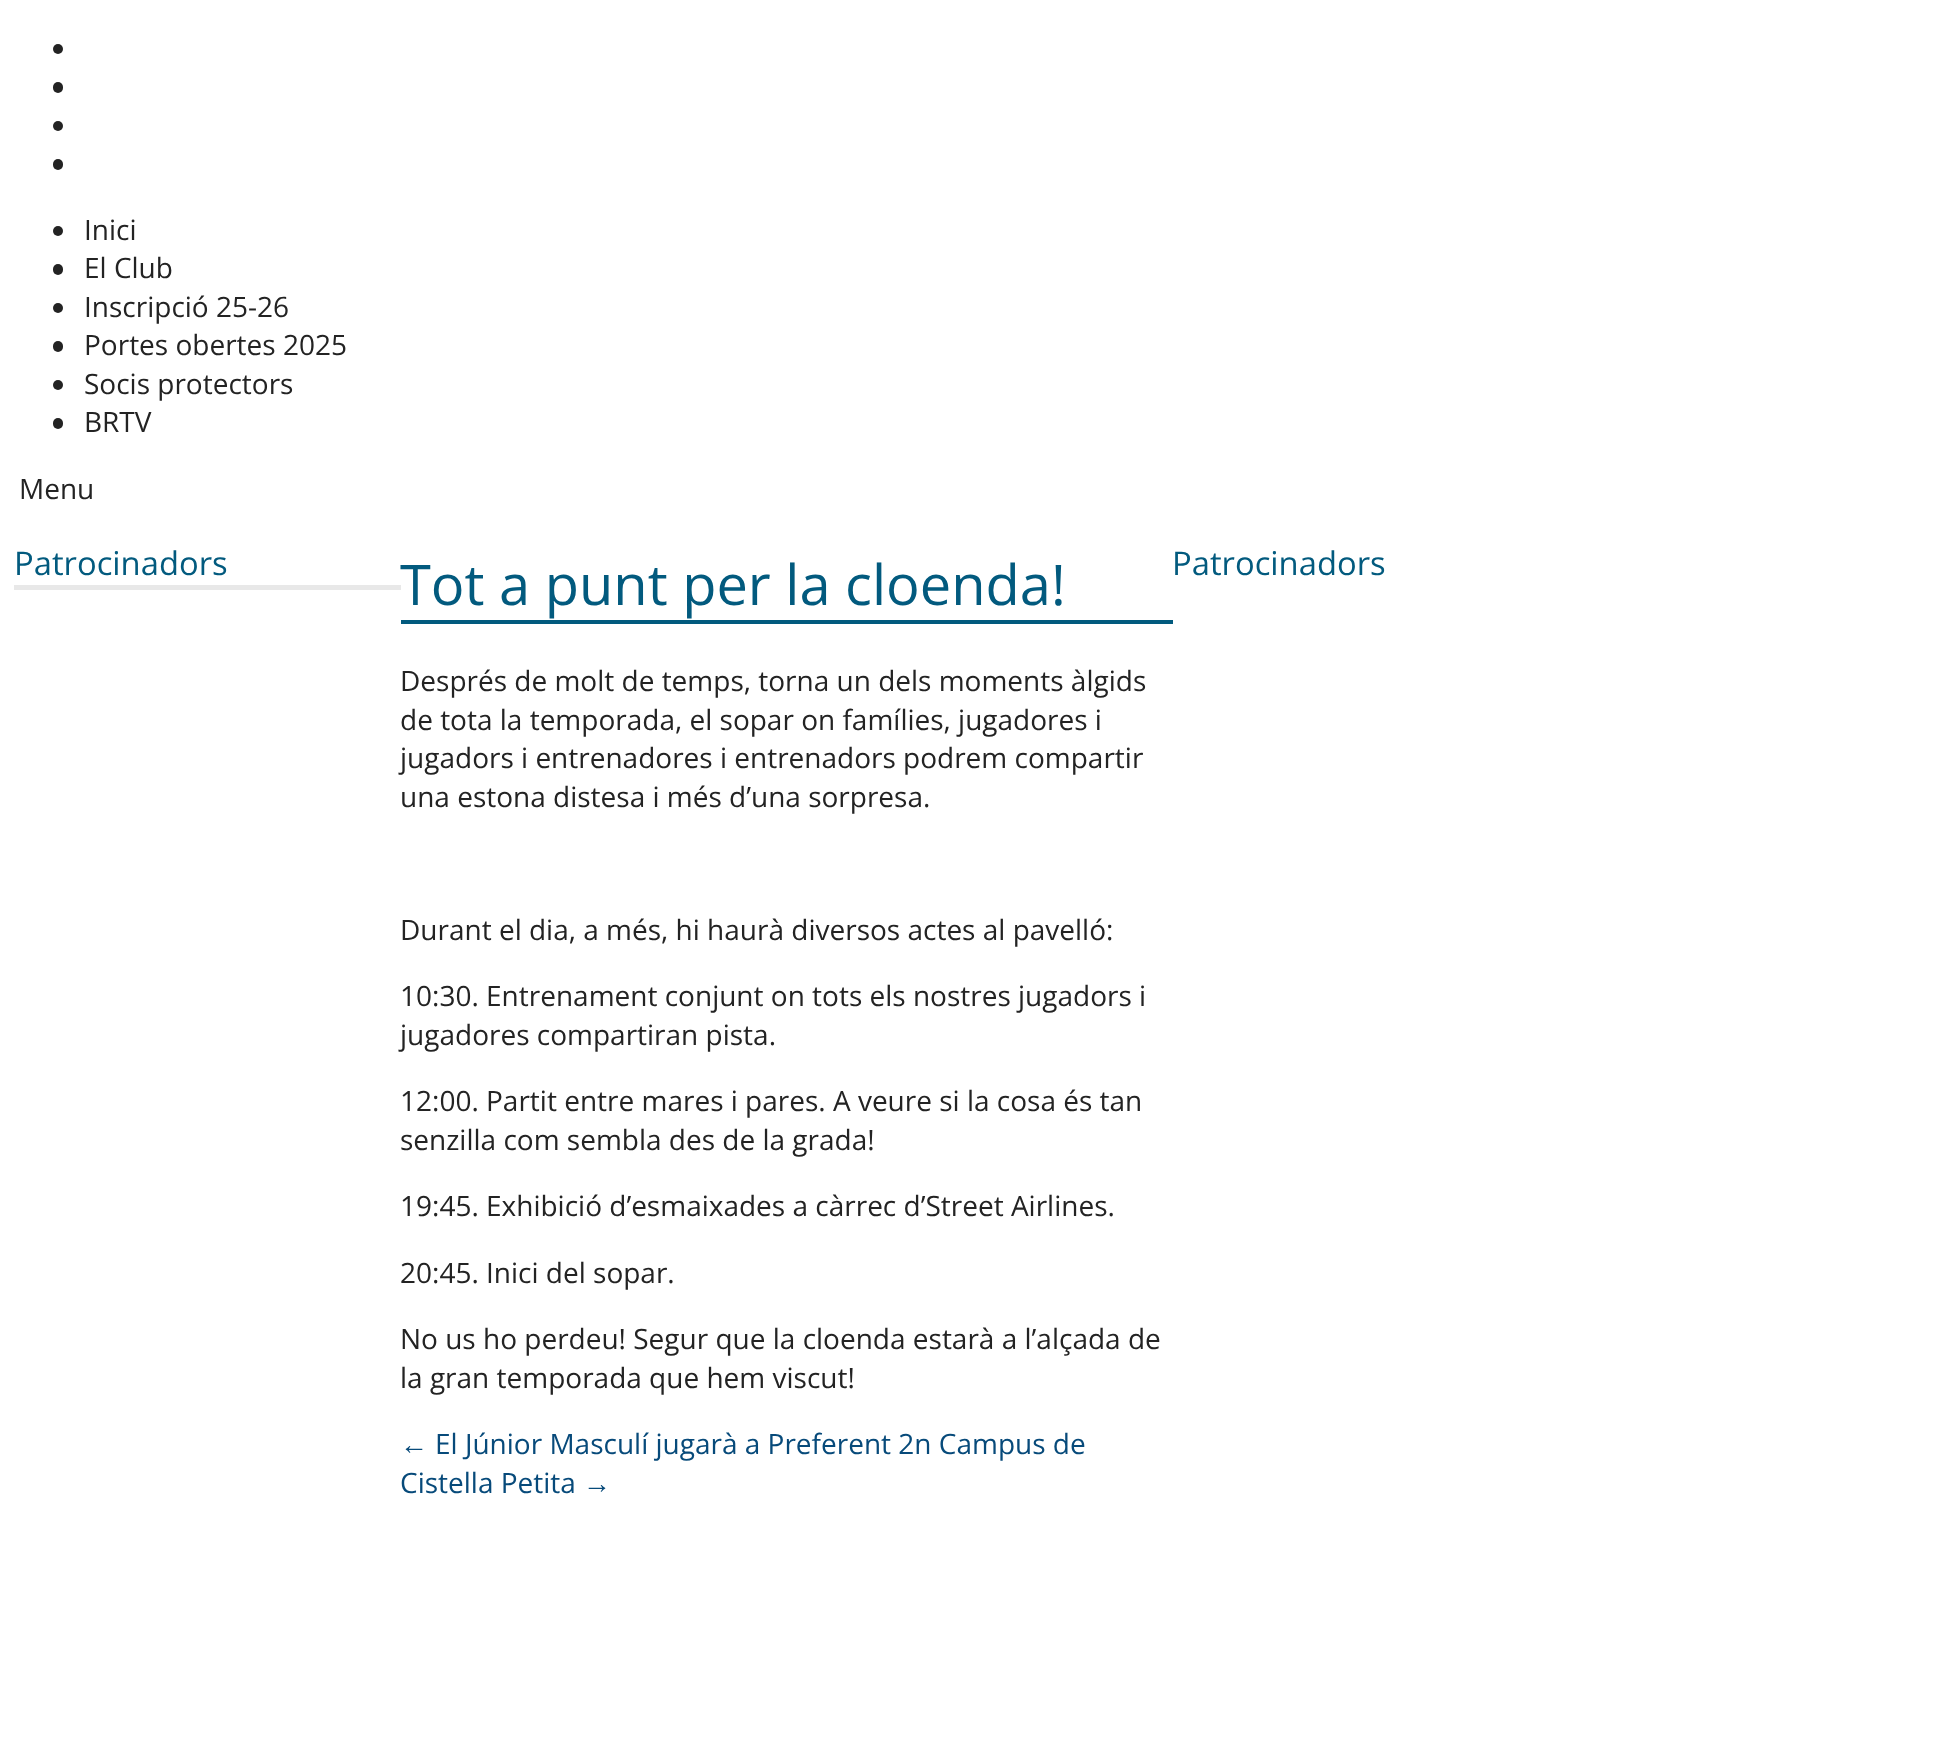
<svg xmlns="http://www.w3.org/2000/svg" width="1958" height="1742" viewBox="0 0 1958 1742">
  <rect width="100%" height="100%" fill="#fff"/>
  <circle cx="58" cy="49" r="5" fill="#232323"/>
  <rect x="53" y="82" width="10" height="11" rx="5" fill="#232323"/>
  <circle cx="58" cy="126" r="5" fill="#232323"/>
  <rect x="53" y="159" width="10" height="11" rx="5" fill="#232323"/>
  <circle cx="58" cy="231" r="5" fill="#232323"/>
  <rect x="53" y="264" width="10" height="11" rx="5" fill="#232323"/>
  <circle cx="58" cy="308" r="5" fill="#232323"/>
  <rect x="53" y="341" width="10" height="11" rx="5" fill="#232323"/>
  <circle cx="58" cy="385" r="5" fill="#232323"/>
  <rect x="53" y="418" width="10" height="11" rx="5" fill="#232323"/>
  <path d="M14 585h387v5H14z" fill="#e8e8e8"/>
  <path d="M401 620h772v4H401z" fill="#025a7e"/>
  <g font-family="Open Sans" font-size="28" fill="#232323">
    <text x="84" y="240">Inici</text>
    <text x="84" y="278">El Club</text>
    <text x="84" y="317">Inscripció 25-26</text>
    <text x="84" y="355">Portes obertes 2025</text>
    <text x="84" y="394">Socis protectors</text>
    <text x="84" y="432">BRTV</text>
    <text x="19" y="499">Menu</text>
  </g>
  <text x="14" y="575" font-family="Open Sans" font-size="32.75" fill="#025a7e">Patrocinadors</text>
  <text x="400" y="605" font-family="Open Sans" font-size="56" fill="#025a7e">Tot a punt per la cloenda!</text>
  <g font-family="Open Sans" font-size="28" fill="#232323">
    <text x="400" y="691">Després de molt de temps, torna un dels moments àlgids</text>
    <text x="400" y="730">de tota la temporada, el sopar on famílies, jugadores i</text>
    <text x="400" y="768">jugadors i entrenadores i entrenadors podrem compartir</text>
    <text x="400" y="807">una estona distesa i més d’una sorpresa.</text>
    <text x="400" y="940">Durant el dia, a més, hi haurà diversos actes al pavelló:</text>
    <text x="400" y="1006">10:30. Entrenament conjunt on tots els nostres jugadors i</text>
    <text x="400" y="1045">jugadores compartiran pista.</text>
    <text x="400" y="1111">12:00. Partit entre mares i pares. A veure si la cosa és tan</text>
    <text x="400" y="1150">senzilla com sembla des de la grada!</text>
    <text x="400" y="1216">19:45. Exhibició d’esmaixades a càrrec d’Street Airlines.</text>
    <text x="400" y="1283">20:45. Inici del sopar.</text>
    <text x="400" y="1349">No us ho perdeu! Segur que la cloenda estarà a l’alçada de</text>
    <text x="400" y="1388">la gran temporada que hem viscut!</text>
  </g>
  <text x="400" y="1454" font-family="Liberation Sans" font-size="28" fill="#074a7a">←</text>
  <g font-family="Open Sans" font-size="28" fill="#074a7a">
    <text x="435" y="1454">El Júnior Masculí jugarà a Preferent 2n Campus de</text>
    <text x="400" y="1493">Cistella Petita</text>
  </g>
  <text x="583" y="1493" font-family="Liberation Sans" font-size="28" fill="#074a7a">→</text>
  <text x="1172" y="575" font-family="Open Sans" font-size="32.75" fill="#025a7e">Patrocinadors</text>
</svg>
